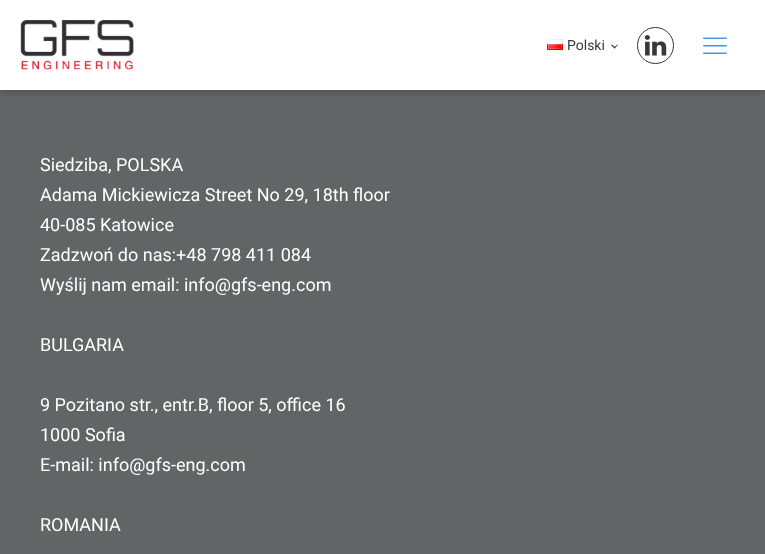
<svg xmlns="http://www.w3.org/2000/svg" width="765" height="554" viewBox="0 0 765 554">
  <defs>
    <clipPath id="clip1"><path d="M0 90h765v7H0z"/></clipPath>
  </defs>
  <rect width="100%" height="100%" fill="#fff"/>
  <path d="M0 90h765v464H0z" fill="#636466"/>
  <g clip-path="url(#clip1)">
    <path d="M0 0h765v90H0z" fill="#0000004d" filter="blur(5px)"/>
  </g>
  <image x="20" y="20" width="114" height="50" href="img/1.png"/>
  <image x="547" y="39" width="16" height="11" href="img/2.png"/>
  <path d="M618 45L614.5 48.5L614 47.5L617.5 44.5Z" fill="#383838"/>
  <path d="M615.5 47.5L614.5 48.5L611 45L612 44.5Z" fill="#383838"/>
  <circle cx="655.5" cy="45.5" r="18" fill="none" stroke="#383838"/>
  <image x="644" y="35" width="23" height="21" href="img/3.png"/>
  <image x="703" y="37" width="24" height="17" href="img/4.png"/>
  <text x="567" y="50" font-family="Roboto" font-size="14" fill="#383838">Polski</text>
  <g font-family="Roboto" font-size="18" fill="#fff">
    <text x="40" y="171">Siedziba, POLSKA</text>
    <text x="40" y="201">Adama Mickiewicza Street No 29, 18th floor</text>
    <text x="40" y="231">40-085 Katowice</text>
    <text x="40" y="261">Zadzwoń do nas:+48 798 411 084</text>
    <text x="40" y="291">Wyślij nam email: info@gfs-eng.com</text>
    <text x="40" y="351">BULGARIA</text>
    <text x="40" y="411">9 Pozitano str., entr.B, floor 5, office 16</text>
    <text x="40" y="441">1000 Sofia</text>
    <text x="40" y="471">E-mail: info@gfs-eng.com</text>
    <text x="40" y="531">ROMANIA</text>
  </g>
</svg>
